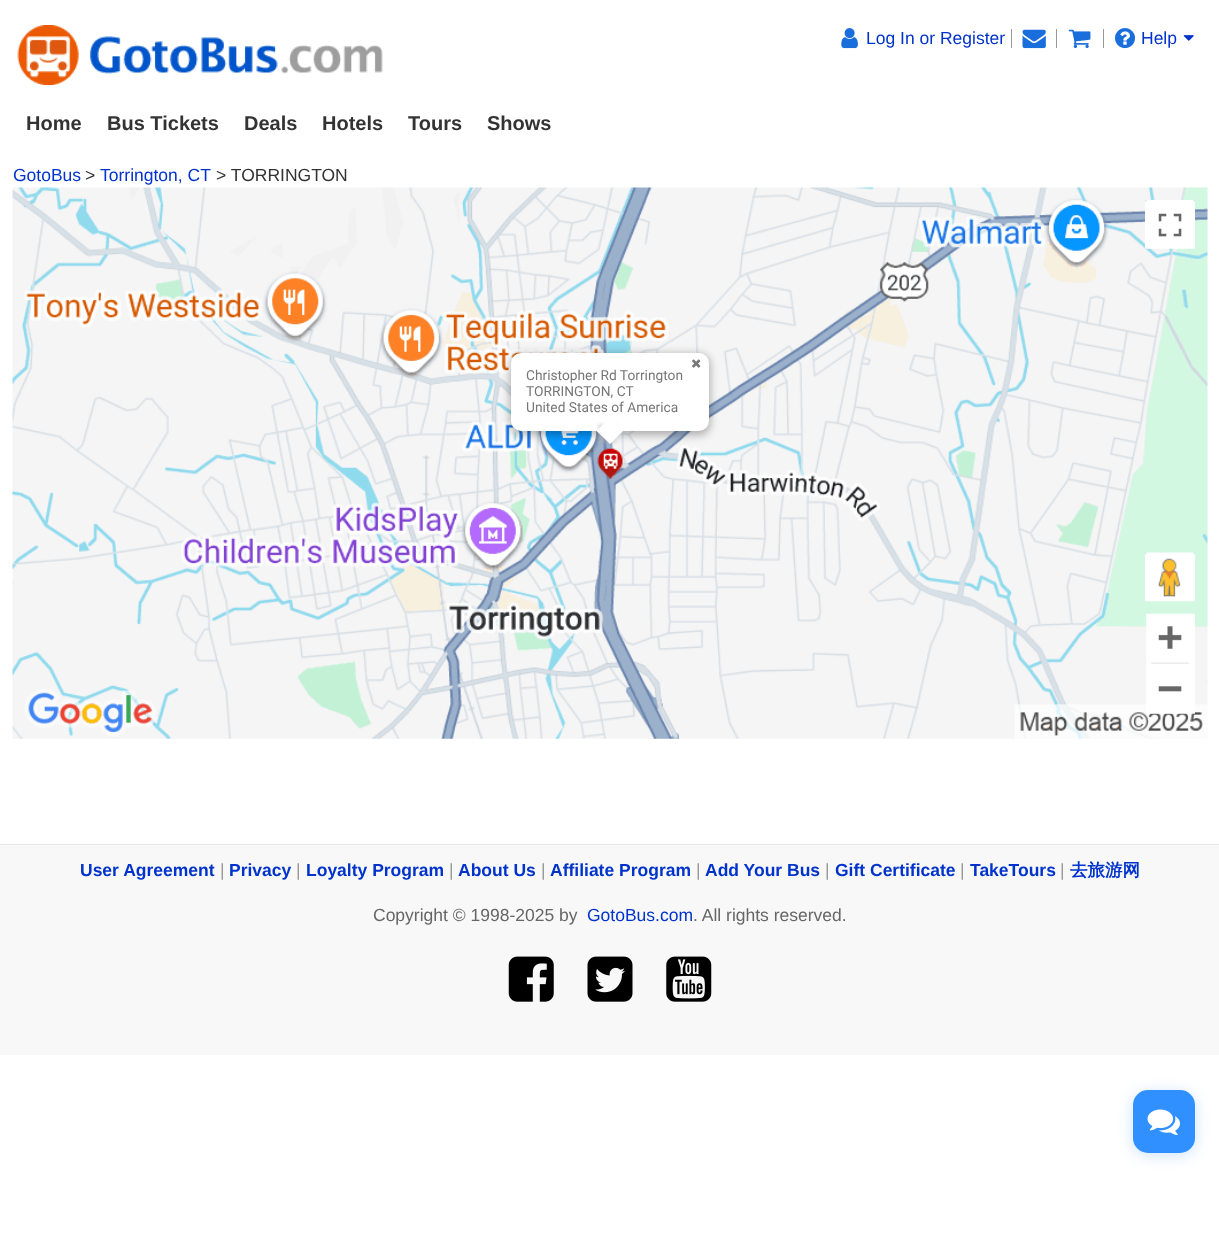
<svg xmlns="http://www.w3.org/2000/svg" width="1219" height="1239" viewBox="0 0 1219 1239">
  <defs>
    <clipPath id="clip1"><path d="M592 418H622V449H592ZM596.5 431L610 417.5L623 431L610 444Z" clip-rule="evenodd"/></clipPath>
    <linearGradient id="g1" gradientUnits="userSpaceOnUse" x1="610" y1="444" x2="610" y2="418"><stop offset="0.5" stop-color="#fff"/><stop offset="0.51" stop-color="#fff" stop-opacity="0"/><stop offset="1" stop-color="#fff" stop-opacity="0"/></linearGradient>
  </defs>
  <rect width="100%" height="100%" fill="#fff"/>
  <image x="17" y="25" width="366" height="60" href="img/1.png"/>
  <image x="841" y="28" width="17" height="21" href="img/2.png"/>
  <path d="M1011 29h1v19H1011z" fill="#999"/>
  <image x="1022" y="29" width="24" height="20" href="img/3.png"/>
  <path d="M1056 29h1v19H1056z" fill="#999"/>
  <image x="1068" y="29" width="23" height="20" href="img/4.png"/>
  <path d="M1103 29h1v19H1103z" fill="#999"/>
  <image x="1115" y="28" width="20" height="21" href="img/5.png"/>
  <image x="1183" y="35" width="11" height="6" href="img/6.png"/>
  <image x="12" y="187" width="1196" height="552" href="img/7.png"/>
  <image x="1145" y="200" width="50" height="49" href="img/8.png"/>
  <image x="1145" y="552" width="50" height="50" href="img/9.png"/>
  <image x="1146" y="613" width="49" height="101" href="img/10.png"/>
  <rect x="510" y="354" width="200" height="81" rx="11" fill="#0000004d" filter="blur(4.5px)"/>
  <rect x="511" y="353" width="198" height="78" rx="10" fill="#fff"/>
  <image x="692" y="359" width="9" height="9" href="img/11.png"/>
  <g clip-path="url(#clip1)">
    <path d="M598 424h18v19H598z" fill="#b2b2b266" filter="blur(1.5px)"/>
  </g>
  <path d="M596.5 431L610 417.5L623 431L610 444Z" fill="url(#g1)"/>
  <image x="597" y="448" width="26" height="31" href="img/12.png"/>
  <path d="M0 845h1219v210H0z" fill="#f8f8f8"/>
  <path d="M0 844h1219v1H0z" fill="#e7e7e7"/>
  <image x="508" y="956" width="46" height="46" href="img/13.png"/>
  <image x="587" y="956" width="46" height="46" href="img/14.png"/>
  <image x="666" y="956" width="46" height="46" href="img/15.png"/>
  <rect x="1133" y="1093" width="62" height="62" rx="15" fill="#3090ff40" filter="blur(7.5px)"/>
  <rect x="1133" y="1090" width="62" height="63" rx="15" fill="#3090ff"/>
  <image x="1147" y="1109" width="33" height="26" href="img/16.png"/>
  <g font-family="Liberation Sans" font-size="17.5" fill="#03c">
    <text x="866" y="44">Log In or Register</text>
    <text x="1141" y="44">Help</text>
  </g>
  <g font-family="Liberation Sans" font-size="20" font-weight="bold" fill="#333">
    <text x="26" y="130">Home</text>
    <text x="107" y="130">Bus Tickets</text>
    <text x="244" y="130">Deals</text>
    <text x="322" y="130">Hotels</text>
    <text x="408" y="130">Tours</text>
    <text x="487" y="130">Shows</text>
  </g>
  <text x="13" y="181" font-family="Liberation Sans" font-size="17.5" fill="#03c">GotoBus</text>
  <text x="85" y="181" font-family="Liberation Sans" font-size="17.5" fill="#333">&gt;</text>
  <text x="100" y="181" font-family="Liberation Sans" font-size="17.5" fill="#03c">Torrington, CT</text>
  <text x="216" y="181" font-family="Liberation Sans" font-size="17.5" fill="#333">&gt; TORRINGTON</text>
  <g font-family="Roboto" font-size="13.75" fill="#777">
    <text x="526" y="380">Christopher Rd Torrington</text>
    <text x="526" y="396">TORRINGTON, CT</text>
    <text x="526" y="412">United States of America</text>
  </g>
  <text x="80" y="876" font-family="Liberation Sans" font-size="17.5" font-weight="bold" fill="#03c">User Agreement</text>
  <text x="220" y="876" font-family="Liberation Sans" font-size="17.5" fill="#999">|</text>
  <text x="229" y="876" font-family="Liberation Sans" font-size="17.5" font-weight="bold" fill="#03c">Privacy</text>
  <text x="296" y="876" font-family="Liberation Sans" font-size="17.5" fill="#999">|</text>
  <text x="306" y="876" font-family="Liberation Sans" font-size="17.5" font-weight="bold" fill="#03c">Loyalty Program</text>
  <text x="449" y="876" font-family="Liberation Sans" font-size="17.5" fill="#999">|</text>
  <text x="458" y="876" font-family="Liberation Sans" font-size="17.5" font-weight="bold" fill="#03c">About Us</text>
  <text x="541" y="876" font-family="Liberation Sans" font-size="17.5" fill="#999">|</text>
  <text x="550" y="876" font-family="Liberation Sans" font-size="17.5" font-weight="bold" fill="#03c">Affiliate Program</text>
  <text x="696" y="876" font-family="Liberation Sans" font-size="17.5" fill="#999">|</text>
  <text x="705" y="876" font-family="Liberation Sans" font-size="17.5" font-weight="bold" fill="#03c">Add Your Bus</text>
  <text x="825" y="876" font-family="Liberation Sans" font-size="17.5" fill="#999">|</text>
  <text x="835" y="876" font-family="Liberation Sans" font-size="17.5" font-weight="bold" fill="#03c">Gift Certificate</text>
  <text x="960" y="876" font-family="Liberation Sans" font-size="17.5" fill="#999">|</text>
  <text x="970" y="876" font-family="Liberation Sans" font-size="17.5" font-weight="bold" fill="#03c">TakeTours</text>
  <text x="1060" y="876" font-family="Liberation Sans" font-size="17.5" fill="#999">|</text>
  <text x="1070" y="876" font-family="WenQuanYi Zen Hei" font-size="17.5" font-weight="bold" fill="#03c">去旅游网</text>
  <text x="373" y="921" font-family="Liberation Sans" font-size="17.5" fill="#666">Copyright © 1998-2025 by</text>
  <text x="587" y="921" font-family="Liberation Sans" font-size="17.5" fill="#03c">GotoBus.com</text>
  <text x="693" y="921" font-family="Liberation Sans" font-size="17.5" fill="#666">. All rights reserved.</text>
</svg>
